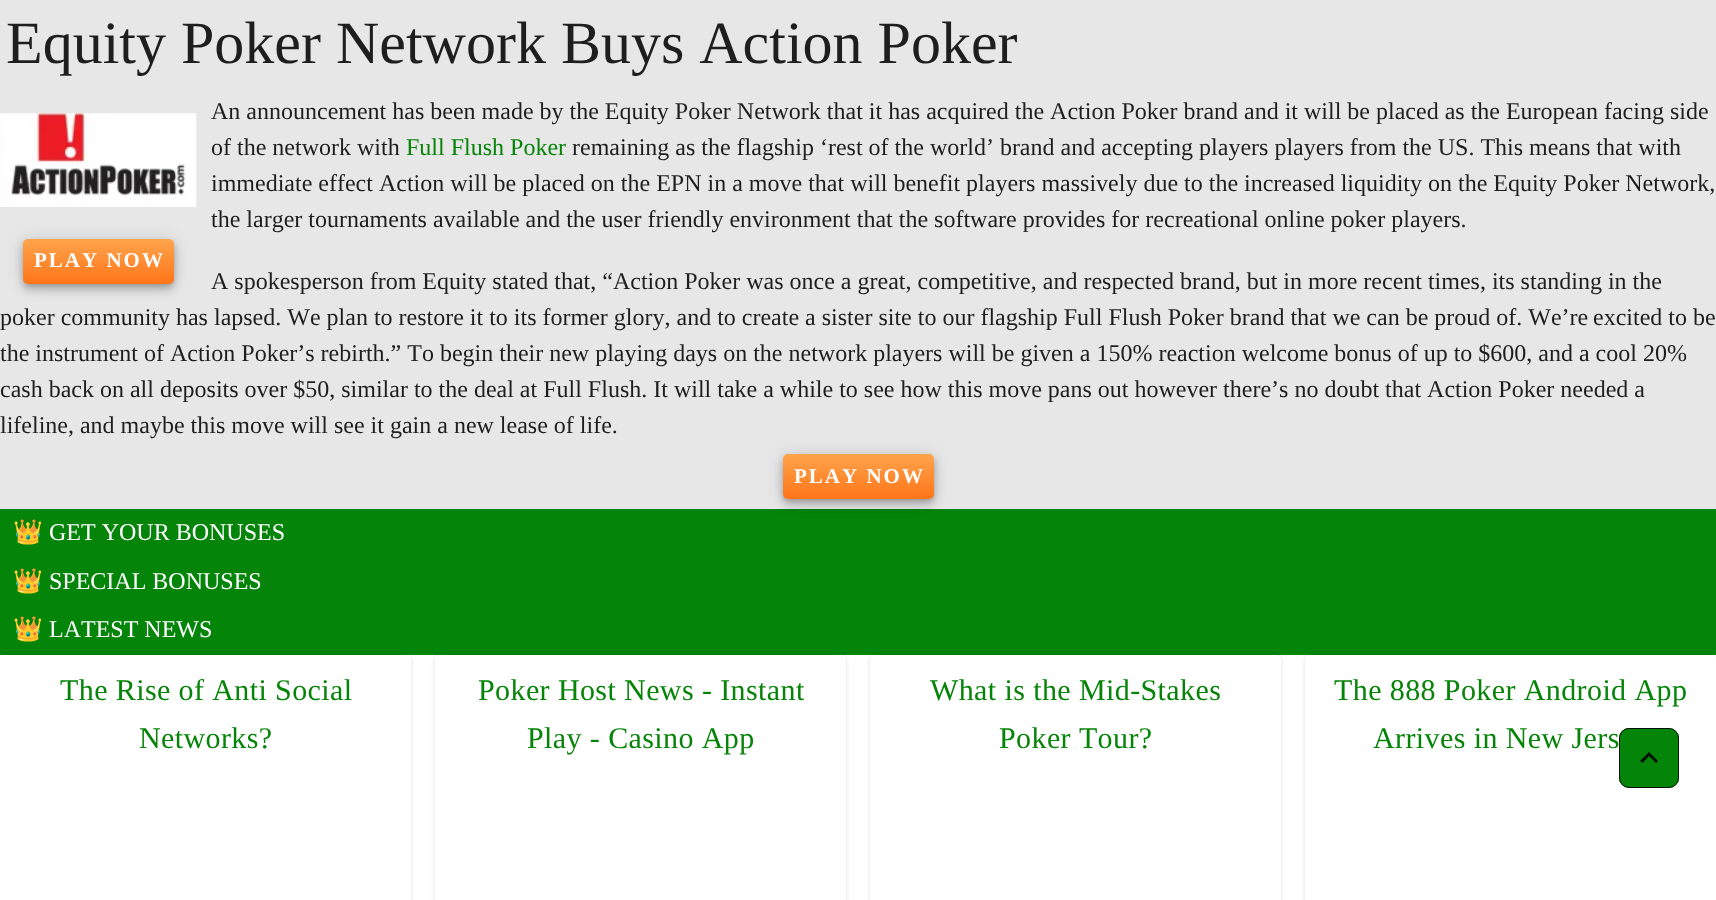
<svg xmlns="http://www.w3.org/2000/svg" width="1716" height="900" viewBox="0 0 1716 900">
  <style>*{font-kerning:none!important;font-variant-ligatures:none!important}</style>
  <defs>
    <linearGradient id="g1" gradientUnits="userSpaceOnUse" x1="98" y1="239" x2="98" y2="284"><stop offset="0" stop-color="#ffa44c"/><stop offset="1" stop-color="#ff7519"/></linearGradient>
    <linearGradient id="g2" gradientUnits="userSpaceOnUse" x1="858" y1="454" x2="858" y2="499"><stop offset="0" stop-color="#ffa44c"/><stop offset="1" stop-color="#ff7519"/></linearGradient>
  </defs>
  <rect width="100%" height="100%" fill="#e7e7e7"/>
  <image x="0" y="113" width="197" height="94" href="img/1.png"/>
  <rect x="23" y="240" width="151" height="45" rx="5" fill="#0000001f" filter="blur(9px)"/>
  <rect x="23" y="245" width="151" height="45" rx="5" fill="#00000024" filter="blur(5px)"/>
  <rect x="24" y="244" width="149" height="42" rx="4" fill="#00000033" filter="blur(3px)"/>
  <rect x="23" y="239" width="151" height="45" rx="5" fill="url(#g1)"/>
  <path d="M0 509h1716v146H0z" fill="#05840a"/>
  <rect x="783" y="455" width="151" height="45" rx="5" fill="#0000001f" filter="blur(9px)"/>
  <rect x="783" y="460" width="151" height="45" rx="5" fill="#00000024" filter="blur(5px)"/>
  <rect x="784" y="459" width="149" height="42" rx="4" fill="#00000033" filter="blur(3px)"/>
  <rect x="783" y="454" width="151" height="45" rx="5" fill="url(#g2)"/>
  <path d="M0 655h1716v245H0z" fill="#fff"/>
  <rect y="656" width="411" height="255" rx="5" fill="#0000001f" filter="blur(2px)"/>
  <rect y="655" width="411" height="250" rx="5" fill="#fff"/>
  <rect x="435" y="656" width="411" height="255" rx="5" fill="#0000001f" filter="blur(2px)"/>
  <rect x="435" y="655" width="411" height="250" rx="5" fill="#fff"/>
  <rect x="870" y="656" width="411" height="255" rx="5" fill="#0000001f" filter="blur(2px)"/>
  <rect x="870" y="655" width="411" height="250" rx="5" fill="#fff"/>
  <rect x="1305" y="656" width="411" height="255" rx="5" fill="#0000001f" filter="blur(2px)"/>
  <rect x="1305" y="655" width="411" height="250" rx="5" fill="#fff"/>
  <rect x="1619" y="728" width="60" height="60" rx="10" fill="#05840a"/>
  <rect x="1619.5" y="728.5" width="59" height="59" rx="9.5" fill="none" stroke="#000000de"/>
  <path d="M1642.5 763L1649 756L1656 763L1658 761L1649 752L1640 761Z" fill="#011101"/>
  <text x="6" y="63" font-family="Liberation Serif" font-size="60" fill="#1e1e1e">Equity Poker Network Buys Action Poker</text>
  <g font-family="Liberation Serif" font-size="24" fill="#1e1e1e">
    <text x="211" y="119">An announcement has been made by the Equity Poker Network that it has acquired the Action Poker brand and it will be placed as the European facing side</text>
    <text x="211" y="155">of the network with</text>
  </g>
  <text x="406" y="155" font-family="Liberation Serif" font-size="24" fill="#068408">Full Flush Poker</text>
  <g font-family="Liberation Serif" font-size="24" fill="#1e1e1e">
    <text x="572" y="155">remaining as the flagship ‘rest of the world’ brand and accepting players players from the US. This means that with</text>
    <text x="211" y="191">immediate effect Action will be placed on the EPN in a move that will benefit players massively due to the increased liquidity on the Equity Poker Network,</text>
    <text x="211" y="227">the larger tournaments available and the user friendly environment that the software provides for recreational online poker players.</text>
  </g>
  <text x="34" y="267" font-family="Liberation Serif" font-size="21" font-weight="bold" letter-spacing="2" fill="#fff">PLAY NOW</text>
  <g font-family="Liberation Serif" font-size="24" fill="#1e1e1e">
    <text x="211" y="289">A spokesperson from Equity stated that, “Action Poker was once a great, competitive, and respected brand, but in more recent times, its standing in the</text>
    <text x="0" y="325">poker community has lapsed. We plan to restore it to its former glory, and to create a sister site to our flagship Full Flush Poker brand that we can be proud of. We’re</text>
    <text x="1593" y="325">excited to be</text>
    <text x="0" y="361">the instrument of Action Poker’s rebirth.” To begin their new playing days on the network players will be given a 150% reaction welcome bonus of up to $600, and a cool 20%</text>
    <text x="0" y="397">cash back on all deposits over $50, similar to the deal at Full Flush. It will take a while to see how this move pans out however there’s no doubt that Action Poker needed a</text>
    <text x="0" y="433">lifeline, and maybe this move will see it gain a new lease of life.</text>
  </g>
  <text x="794" y="483" font-family="Liberation Serif" font-size="21" font-weight="bold" letter-spacing="2" fill="#fff">PLAY NOW</text>
  <text x="13" y="540" font-family="Noto Color Emoji" font-size="24" fill="#fff">👑</text>
  <text x="49" y="540" font-family="Liberation Serif" font-size="24" fill="#fff">GET YOUR BONUSES</text>
  <text x="13" y="589" font-family="Noto Color Emoji" font-size="24" fill="#fff">👑</text>
  <text x="49" y="589" font-family="Liberation Serif" font-size="24" fill="#fff">SPECIAL BONUSES</text>
  <text x="13" y="637" font-family="Noto Color Emoji" font-size="24" fill="#fff">👑</text>
  <text x="49" y="637" font-family="Liberation Serif" font-size="24" fill="#fff">LATEST NEWS</text>
  <g font-family="Liberation Serif" font-size="30" letter-spacing="0.4" fill="#068408">
    <text x="60" y="700">The Rise of Anti Social</text>
    <text x="139" y="748">Networks?</text>
    <text x="478" y="700">Poker Host News - Instant</text>
    <text x="527" y="748">Play - Casino App</text>
    <text x="930" y="700">What is the Mid-Stakes</text>
    <text x="999" y="748">Poker Tour?</text>
    <text x="1334" y="700">The 888 Poker Android App</text>
    <text x="1373" y="748">Arrives in New Jers</text>
  </g>
</svg>
